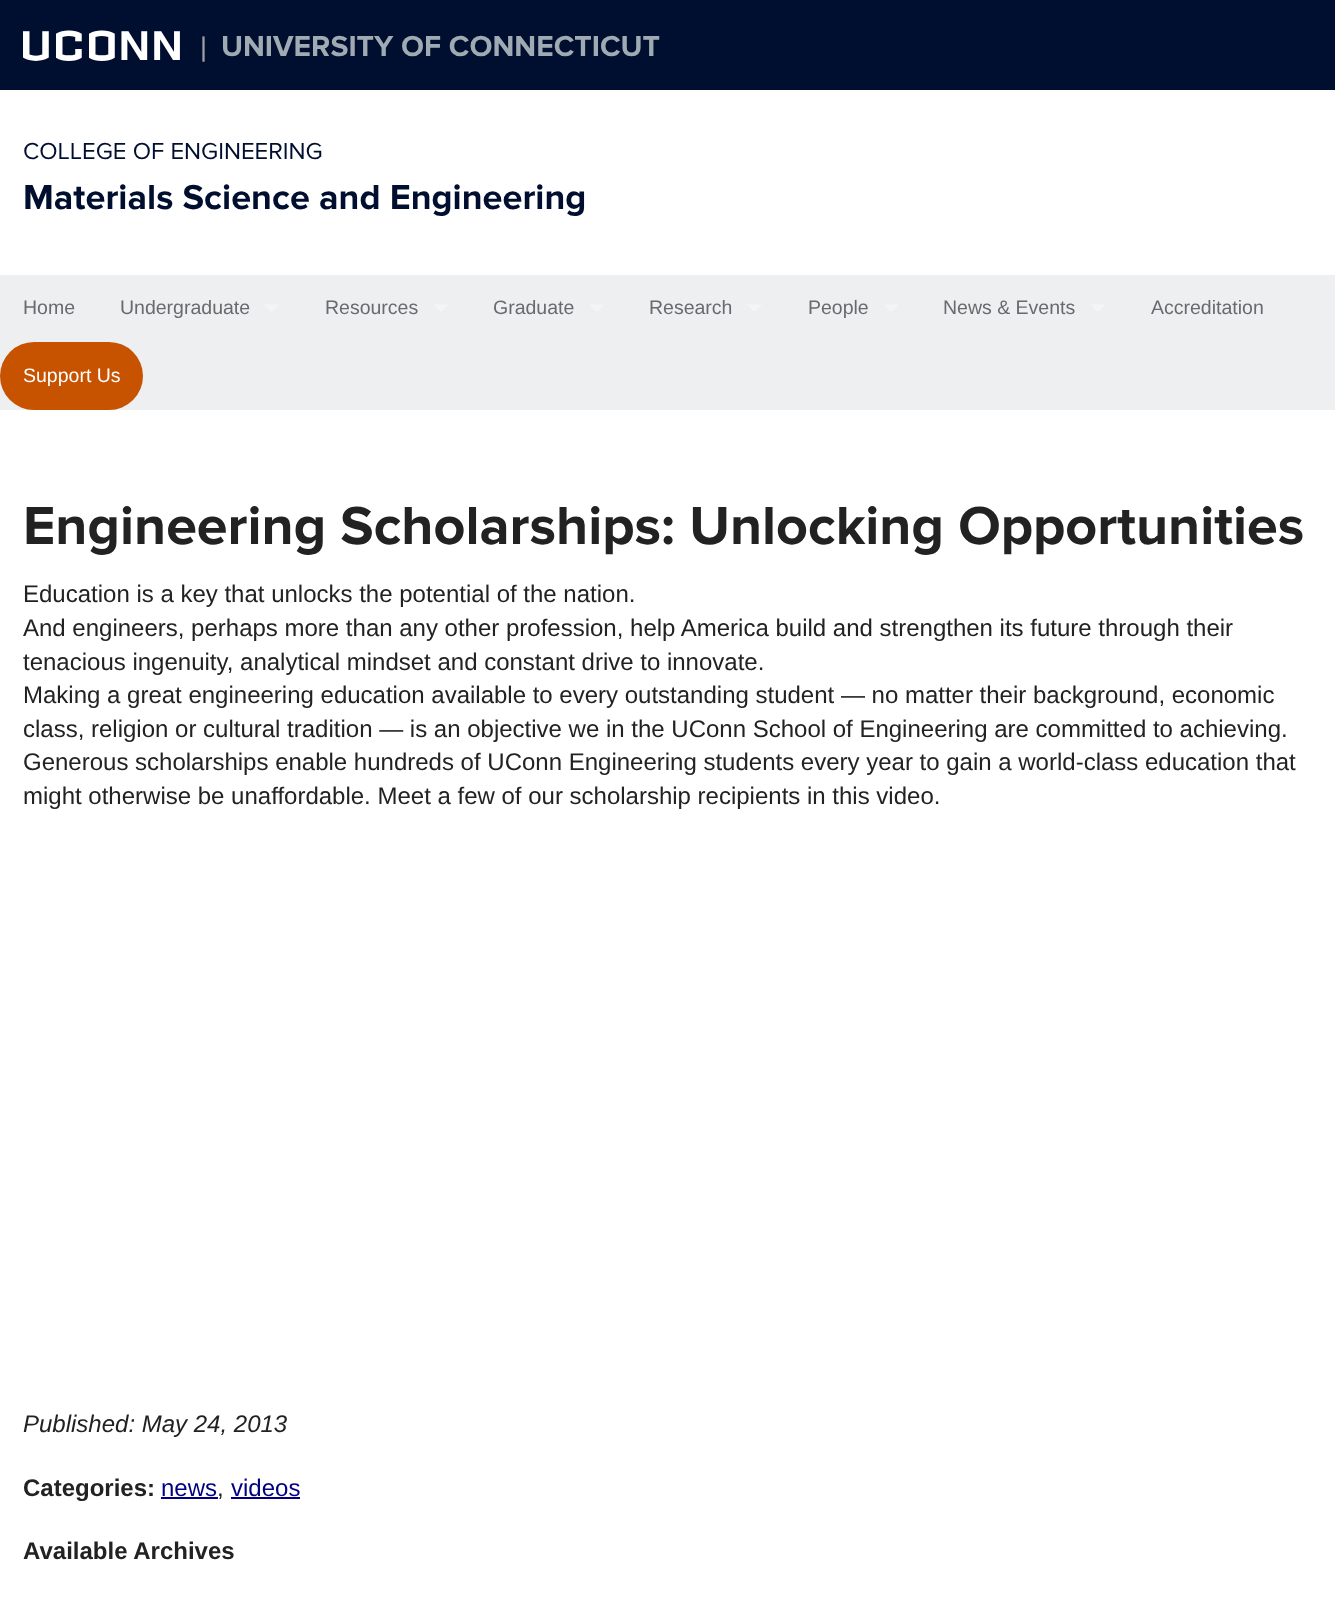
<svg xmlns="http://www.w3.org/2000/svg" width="1335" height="1601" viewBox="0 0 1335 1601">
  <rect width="100%" height="100%" fill="#fff"/>
  <path d="M0 0h1335v90H0z" fill="#000e2f"/>
  <path d="M0 275h1335v135H0z" fill="#eeeff1"/>
  <path d="M264 304.5H279L271.5 312Z" fill="#f5f5f7"/>
  <path d="M433.5 304.5H448.5L441 312Z" fill="#f5f5f7"/>
  <path d="M589.5 304.5H604.5L597 312Z" fill="#f5f5f7"/>
  <path d="M747 304.5H762L754.5 312Z" fill="#f5f5f7"/>
  <path d="M883.5 304.5H898.5L891 312Z" fill="#f5f5f7"/>
  <path d="M1090.5 304.5H1105.5L1098 312Z" fill="#f5f5f7"/>
  <rect y="342" width="143" height="68" rx="34" fill="#c75300"/>
  <path d="M161 1497h57v2H161z" fill="#000080"/>
  <path d="M231 1497h69v2H231z" fill="#000080"/>
  <text x="23" y="60" font-family="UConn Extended" font-size="48" letter-spacing="4.5" fill="#fff">UCONN</text>
  <text x="200" y="56" font-family="Liberation Sans" font-size="27" fill="#a1a1a1">|</text>
  <text x="221" y="56" font-family="Proxima Nova" font-size="30" font-weight="bold" fill="#9faab2">UNIVERSITY OF CONNECTICUT</text>
  <text x="23" y="159" font-family="Proxima Nova" font-size="24" fill="#000e2f">COLLEGE OF ENGINEERING</text>
  <text x="23" y="209" font-family="Proxima Nova" font-size="36" font-weight="bold" fill="#000e2f">Materials Science and Engineering</text>
  <g font-family="Liberation Sans" font-size="19.5" fill="#696a6d">
    <text x="23" y="314">Home</text>
    <text x="120" y="314">Undergraduate</text>
    <text x="325" y="314">Resources</text>
    <text x="493" y="314">Graduate</text>
    <text x="649" y="314">Research</text>
    <text x="808" y="314">People</text>
    <text x="943" y="314">News &amp; Events</text>
    <text x="1151" y="314">Accreditation</text>
  </g>
  <text x="23" y="382" font-family="Liberation Sans" font-size="19.5" fill="#fff">Support Us</text>
  <text x="23" y="544" font-family="Proxima Nova" font-size="55.5" font-weight="bold" fill="#222">Engineering Scholarships: Unlocking Opportunities</text>
  <g font-family="Liberation Sans" font-size="24" fill="#222">
    <text x="23" y="602">Education is a key that unlocks the potential of the nation.</text>
    <text x="23" y="636">And engineers, perhaps more than any other profession, help America build and strengthen its future through their</text>
    <text x="23" y="670">tenacious ingenuity, analytical mindset and constant drive to innovate.</text>
    <text x="23" y="703">Making a great engineering education available to every outstanding student — no matter their background, economic</text>
    <text x="23" y="737">class, religion or cultural tradition — is an objective we in the UConn School of Engineering are committed to achieving.</text>
    <text x="23" y="770">Generous scholarships enable hundreds of UConn Engineering students every year to gain a world-class education that</text>
    <text x="23" y="804">might otherwise be unaffordable. Meet a few of our scholarship recipients in this video.</text>
  </g>
  <text x="23" y="1432" font-family="Liberation Sans" font-size="24" font-style="italic" fill="#222">Published: May 24, 2013</text>
  <text x="23" y="1496" font-family="Liberation Sans" font-size="24" font-weight="bold" fill="#222">Categories:</text>
  <text x="161" y="1496" font-family="Liberation Sans" font-size="24" fill="#000080">news</text>
  <text x="217" y="1496" font-family="Liberation Sans" font-size="24" fill="#222">,</text>
  <text x="231" y="1496" font-family="Liberation Sans" font-size="24" fill="#000080">videos</text>
  <text x="23" y="1559" font-family="Liberation Sans" font-size="24" font-weight="bold" fill="#222">Available Archives</text>
</svg>
